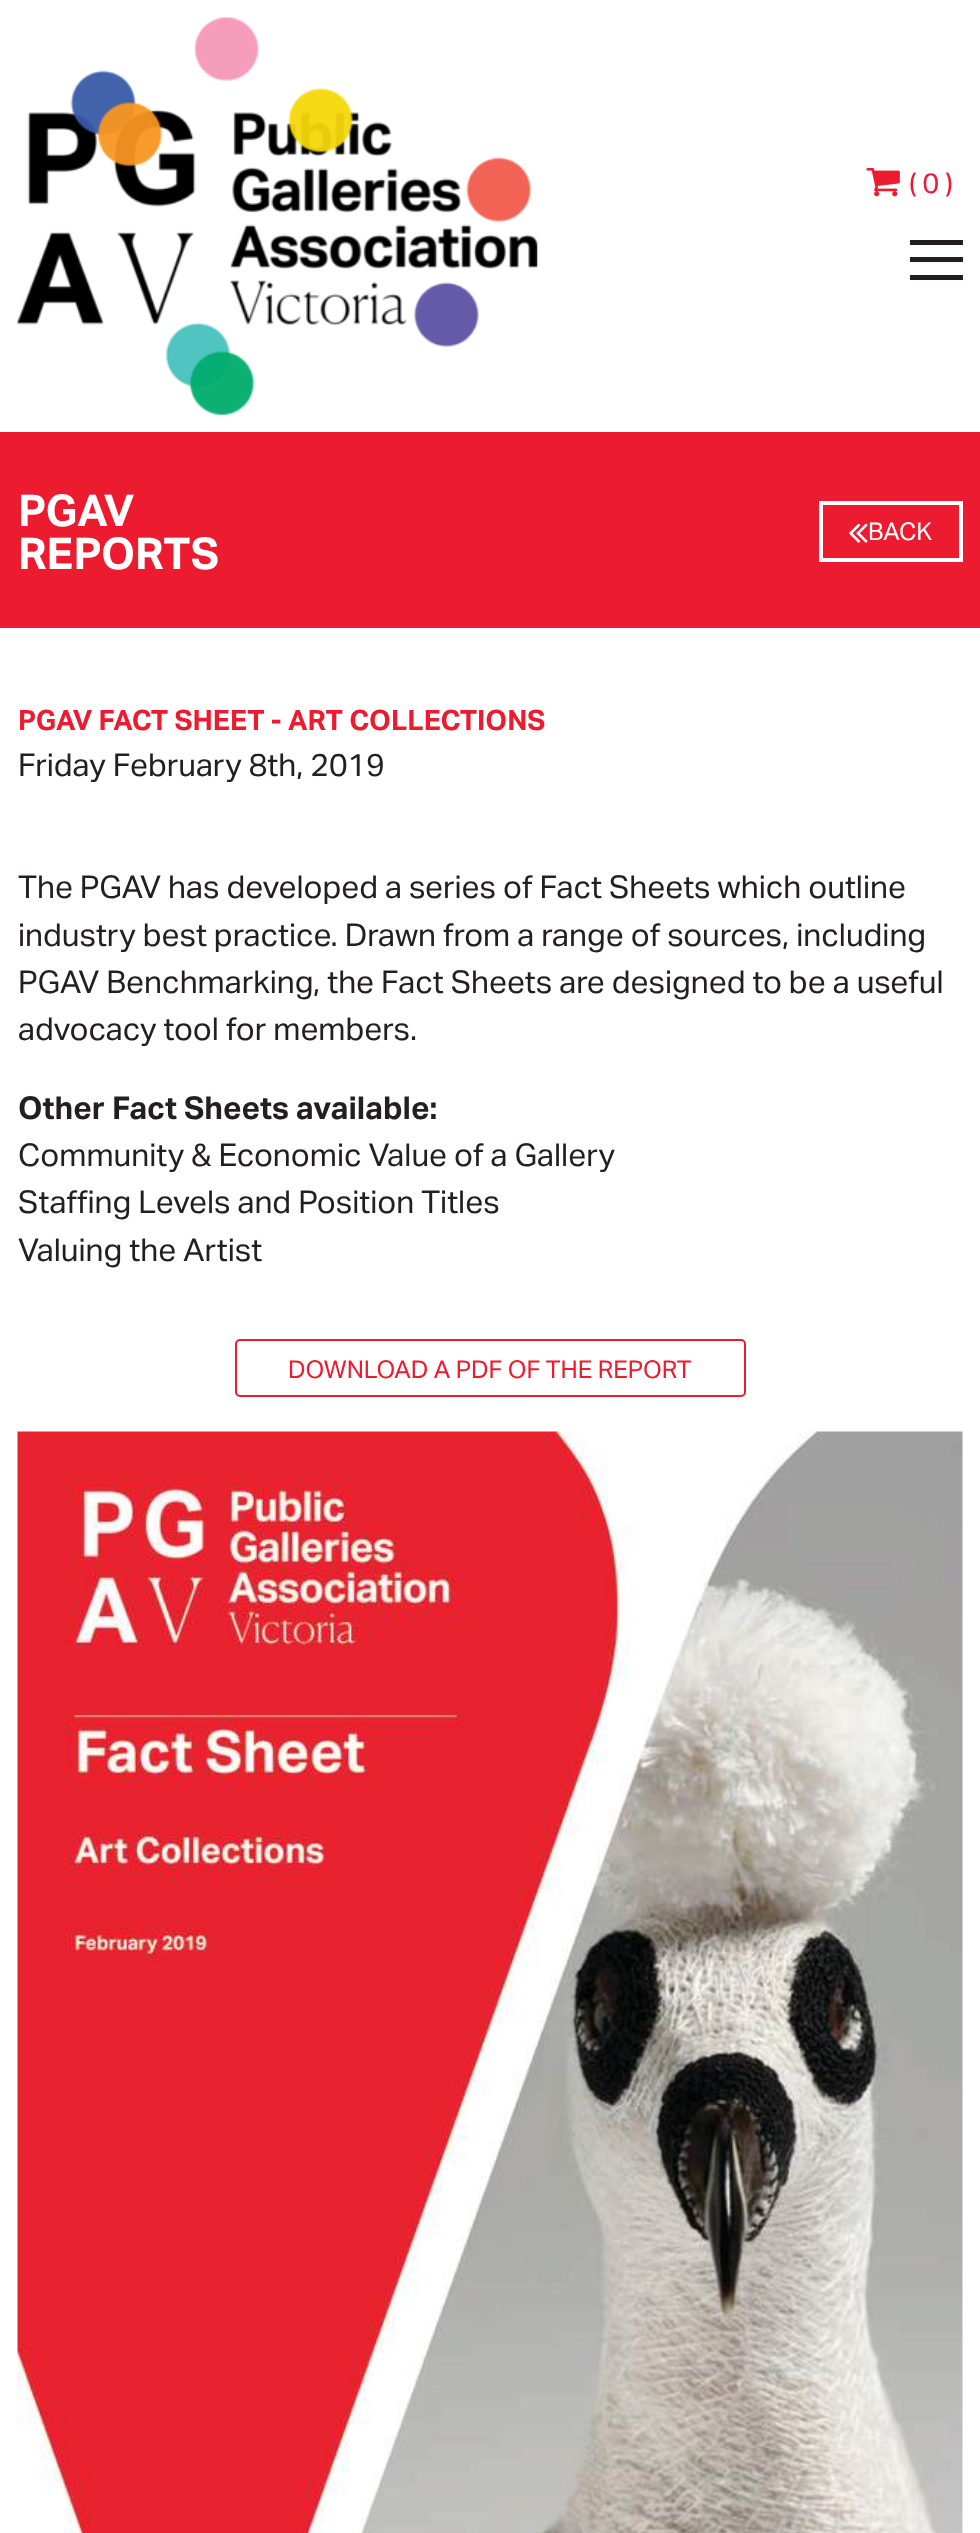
<svg xmlns="http://www.w3.org/2000/svg" width="980" height="2533" viewBox="0 0 980 2533">
  <rect width="100%" height="100%" fill="#fff"/>
  <image x="17" y="17" width="521" height="398" href="img/1.png"/>
  <image x="866" y="168" width="34" height="29" href="img/2.png"/>
  <path d="M910 240h53v5H910z" fill="#231f20"/>
  <path d="M910 257h53v5H910z" fill="#231f20"/>
  <path d="M910 275h53v5H910z" fill="#231f20"/>
  <path d="M0 432h980v196H0z" fill="#ed1b2f"/>
  <path d="M821 503h140v57H821z" fill="none" stroke="#fff" stroke-width="4"/>
  <image x="849" y="523" width="19" height="20" href="img/3.png"/>
  <rect x="236" y="1340" width="509" height="56" rx="4" fill="none" stroke="#ed1b2f" stroke-width="2"/>
  <image x="17" y="1431" width="946" height="1102" href="img/4.png"/>
  <text x="909" y="193" font-family="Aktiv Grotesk" font-size="28" fill="#ed1b2f">( 0 )</text>
  <g font-family="Aktiv Grotesk" font-size="43.75" font-weight="bold" fill="#fff">
    <text x="18" y="526">PGAV</text>
    <text x="18" y="569">REPORTS</text>
  </g>
  <text x="868" y="540" font-family="Aktiv Grotesk" font-size="24.5" fill="#fff">BACK</text>
  <text x="18" y="730" font-family="Aktiv Grotesk" font-size="28" font-weight="bold" fill="#ed1b2f">PGAV FACT SHEET - ART COLLECTIONS</text>
  <g font-family="Aktiv Grotesk" font-size="31.5" fill="#231f20">
    <text x="18" y="776">Friday February 8th, 2019</text>
    <text x="18" y="898">The PGAV has developed a series of Fact Sheets which outline</text>
    <text x="18" y="946">industry best practice. Drawn from a range of sources, including</text>
    <text x="18" y="993">PGAV Benchmarking, the Fact Sheets are designed to be a useful</text>
    <text x="18" y="1040">advocacy tool for members.</text>
  </g>
  <text x="18" y="1119" font-family="Aktiv Grotesk" font-size="31.5" font-weight="bold" fill="#231f20">Other Fact Sheets available:</text>
  <g font-family="Aktiv Grotesk" font-size="31.5" fill="#231f20">
    <text x="18" y="1166">Community &amp; Economic Value of a Gallery</text>
    <text x="18" y="1213">Staffing Levels and Position Titles</text>
    <text x="18" y="1261">Valuing the Artist</text>
  </g>
  <text x="288" y="1378" font-family="Aktiv Grotesk" font-size="24.5" fill="#ed1b2f">DOWNLOAD A PDF OF THE REPORT</text>
</svg>
